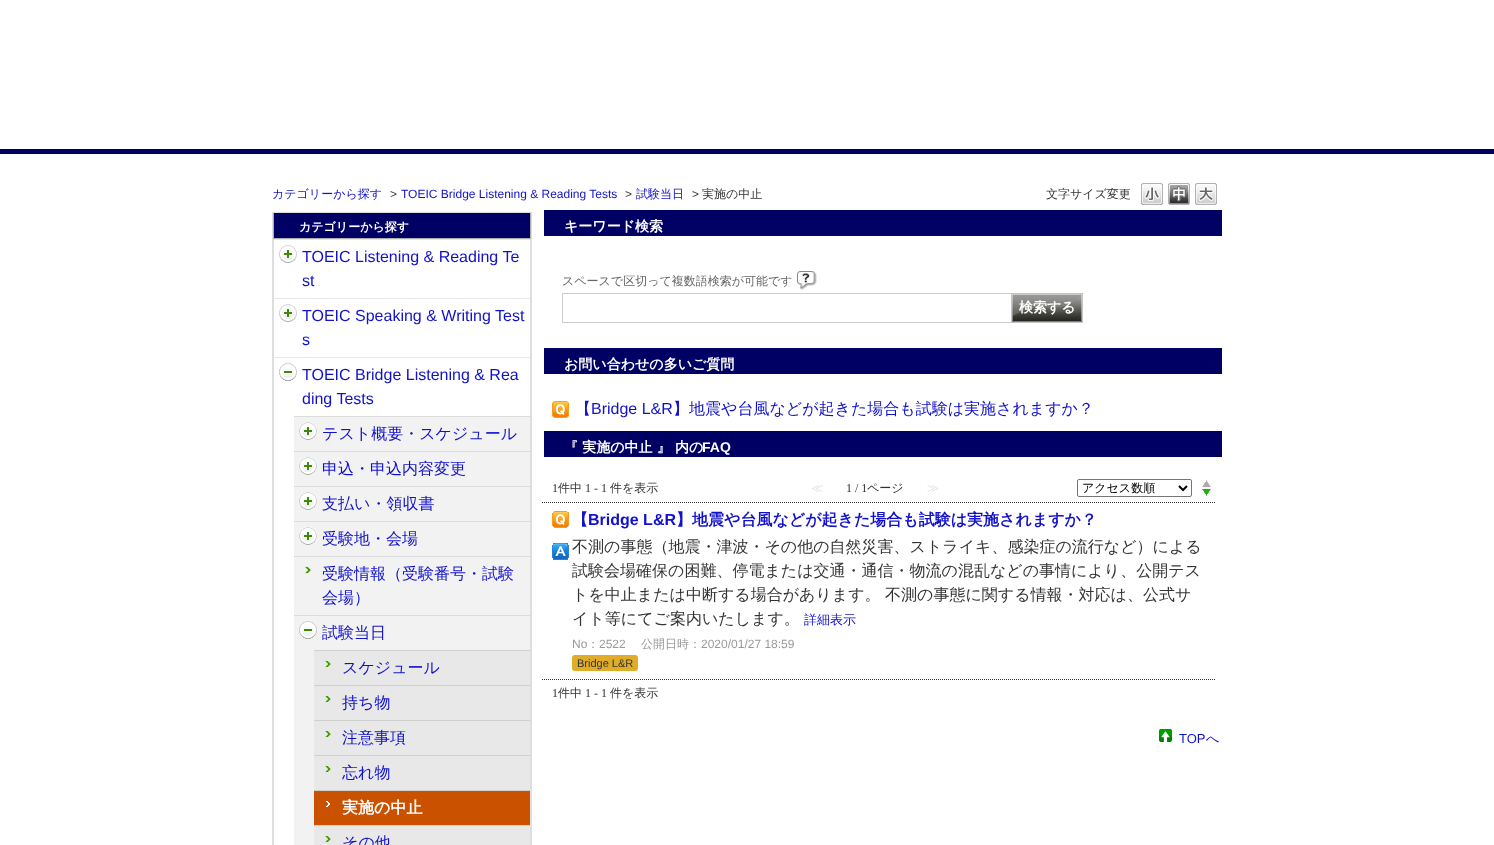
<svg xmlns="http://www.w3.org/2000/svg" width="1494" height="845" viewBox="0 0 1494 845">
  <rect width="100%" height="100%" fill="#fff"/>
  <path d="M0 149h1494v5H0z" fill="#000064"/>
  <image x="1141" y="183" width="22" height="22" href="img/1.png"/>
  <image x="1168" y="183" width="22" height="22" href="img/2.png"/>
  <image x="1195" y="183" width="22" height="22" href="img/3.png"/>
  <path d="M272 212h260v633H272z" fill="#dedede"/>
  <path d="M274 213h256v25H274z" fill="#000064"/>
  <path d="M530 213h1v26H530z" fill="#adadad"/>
  <path d="M273 238h258v1H273z" fill="#adadad"/>
  <path d="M273 213h1v26H273z" fill="#adadad"/>
  <path d="M274 240h256v605H274z" fill="#fff"/>
  <path d="M274 239h256v1H274z" fill="#e6e6e6"/>
  <image x="279" y="245" width="18" height="18" href="img/4.png"/>
  <path d="M274 298h256v1H274z" fill="#e6e6e6"/>
  <image x="279" y="304" width="18" height="18" href="img/4.png"/>
  <path d="M274 357h256v1H274z" fill="#e6e6e6"/>
  <image x="279" y="363" width="18" height="18" href="img/5.png"/>
  <path d="M294 417h236v428H294z" fill="#f2f2f2"/>
  <path d="M294 416h236v1H294z" fill="#dcdcdc"/>
  <image x="299" y="422" width="18" height="18" href="img/6.png"/>
  <path d="M294 451h236v1H294z" fill="#dcdcdc"/>
  <image x="299" y="457" width="18" height="18" href="img/6.png"/>
  <path d="M294 486h236v1H294z" fill="#dcdcdc"/>
  <image x="299" y="492" width="18" height="18" href="img/6.png"/>
  <path d="M294 521h236v1H294z" fill="#dcdcdc"/>
  <image x="299" y="527" width="18" height="18" href="img/6.png"/>
  <path d="M294 556h236v1H294z" fill="#dcdcdc"/>
  <image x="305" y="566" width="6" height="8" href="img/7.png"/>
  <path d="M294 615h236v1H294z" fill="#dcdcdc"/>
  <image x="299" y="621" width="18" height="18" href="img/8.png"/>
  <path d="M314 651h216v194H314z" fill="#e8e8e8"/>
  <path d="M314 650h216v1H314z" fill="#cfcfcf"/>
  <image x="325" y="660" width="6" height="8" href="img/9.png"/>
  <path d="M314 685h216v1H314z" fill="#cfcfcf"/>
  <image x="325" y="695" width="6" height="8" href="img/9.png"/>
  <path d="M314 720h216v1H314z" fill="#cfcfcf"/>
  <image x="325" y="730" width="6" height="8" href="img/9.png"/>
  <path d="M314 755h216v1H314z" fill="#cfcfcf"/>
  <image x="325" y="765" width="6" height="8" href="img/9.png"/>
  <path d="M314 790h216v1H314z" fill="#cfcfcf"/>
  <path d="M314 791h216v34H314z" fill="#c95100"/>
  <image x="326" y="801" width="4" height="6" href="img/10.png"/>
  <path d="M314 825h216v1H314z" fill="#cfcfcf"/>
  <image x="325" y="835" width="6" height="8" href="img/9.png"/>
  <path d="M544 210h678v26H544z" fill="#000064"/>
  <image x="797" y="271" width="20" height="19" href="img/11.png"/>
  <path d="M562 293h449v1H562z" fill="#ccc"/>
  <path d="M562 322h449v1H562z" fill="#ccc"/>
  <path d="M562 293h1v30H562z" fill="#ccc"/>
  <image x="1011" y="293" width="72" height="30" href="img/12.png"/>
  <path d="M544 348h678v26H544z" fill="#000064"/>
  <image x="552" y="401" width="17" height="17" href="img/13.png"/>
  <path d="M544 431h678v26H544z" fill="#000064"/>
  <rect x="1077.5" y="479.5" width="114" height="17" rx="1.5" fill="none" stroke="#767676"/>
  <path d="M1179 486L1183 490L1187 486" fill="none" stroke="#000" stroke-width="2"/>
  <image x="1202" y="480" width="9" height="7" href="img/14.png"/>
  <image x="1202" y="489" width="9" height="7" href="img/15.png"/>
  <path d="M542 502.5H1215" fill="none" stroke="#333" stroke-dasharray="1 1"/>
  <path d="M542 679.5H1215" fill="none" stroke="#333" stroke-dasharray="1 1"/>
  <image x="552" y="511" width="17" height="17" href="img/16.png"/>
  <image x="552" y="543" width="17" height="17" href="img/17.png"/>
  <rect x="572" y="655" width="66" height="16" rx="3" fill="#dfad27"/>
  <image x="1159" y="729" width="13" height="13" href="img/18.png"/>
  <text x="272" y="198" font-family="WenQuanYi Zen Hei" font-size="12" font-weight="500" fill="#11c">カテゴリーから探す</text>
  <text x="390" y="198" font-family="Liberation Sans" font-size="12" fill="#333">&gt;</text>
  <text x="401" y="198" font-family="Liberation Sans" font-size="12" fill="#11c">TOEIC Bridge Listening &amp; Reading Tests</text>
  <text x="625" y="198" font-family="Liberation Sans" font-size="12" fill="#333">&gt;</text>
  <text x="636" y="198" font-family="WenQuanYi Zen Hei" font-size="12" font-weight="500" fill="#11c">試験当日</text>
  <text x="692" y="198" font-family="Liberation Sans" font-size="12" fill="#333">&gt;</text>
  <g font-family="WenQuanYi Zen Hei" font-size="12" font-weight="500" fill="#333">
    <text x="702" y="198">実施の中止</text>
    <text x="1046" y="198">文字サイズ変更</text>
  </g>
  <text x="299" y="231" font-family="WenQuanYi Zen Hei" font-size="12" font-weight="bold" fill="#fff">カテゴリーから探す</text>
  <g font-family="Liberation Sans" font-size="16" fill="#11c">
    <text x="302" y="262">TOEIC Listening &amp; Reading Te</text>
    <text x="302" y="286">st</text>
    <text x="302" y="321">TOEIC Speaking &amp; Writing Test</text>
    <text x="302" y="345">s</text>
    <text x="302" y="380">TOEIC Bridge Listening &amp; Rea</text>
    <text x="302" y="404">ding Tests</text>
  </g>
  <g font-family="WenQuanYi Zen Hei" font-size="16" font-weight="500" fill="#11c">
    <text x="322" y="439">テスト概要・スケジュール</text>
    <text x="322" y="474">申込・申込内容変更</text>
    <text x="322" y="509">支払い・領収書</text>
    <text x="322" y="544">受験地・会場</text>
    <text x="322" y="579">受験情報（受験番号・試験</text>
    <text x="322" y="603">会場）</text>
    <text x="322" y="638">試験当日</text>
    <text x="342" y="673">スケジュール</text>
    <text x="342" y="708">持ち物</text>
    <text x="342" y="743">注意事項</text>
    <text x="342" y="778">忘れ物</text>
  </g>
  <text x="342" y="813" font-family="WenQuanYi Zen Hei" font-size="16" font-weight="bold" fill="#fff">実施の中止</text>
  <text x="342" y="848" font-family="WenQuanYi Zen Hei" font-size="16" font-weight="500" fill="#11c">その他</text>
  <text x="564" y="231" font-family="WenQuanYi Zen Hei" font-size="14" font-weight="bold" fill="#fff">キーワード検索</text>
  <text x="562" y="285" font-family="WenQuanYi Zen Hei" font-size="12" font-weight="500" fill="#666">スペースで区切って複数語検索が可能です</text>
  <g font-family="WenQuanYi Zen Hei" font-size="14" font-weight="bold" fill="#fff">
    <text x="1019" y="312">検索する</text>
    <text x="564" y="369">お問い合わせの多いご質問</text>
  </g>
  <text x="575" y="414" font-family="WenQuanYi Zen Hei" font-size="16" font-weight="500" fill="#11c">【</text>
  <text x="591" y="414" font-family="Liberation Sans" font-size="16" fill="#11c">Bridge L&amp;R</text>
  <text x="673" y="414" font-family="WenQuanYi Zen Hei" font-size="16" font-weight="500" fill="#11c">】地震や台風などが起きた場合も試験は実施されますか？</text>
  <text x="564" y="452" font-family="WenQuanYi Zen Hei" font-size="14" font-weight="bold" fill="#fff">『 実施の中止 』 内の</text>
  <text x="702" y="452" font-family="Liberation Sans" font-size="14" font-weight="bold" fill="#fff">FAQ</text>
  <text x="552" y="492" font-family="Liberation Serif" font-size="12" fill="#333">1</text>
  <text x="558" y="492" font-family="WenQuanYi Zen Hei" font-size="12" font-weight="500" fill="#333">件中</text>
  <text x="585" y="492" font-family="Liberation Serif" font-size="12" fill="#333">1 - 1</text>
  <text x="610" y="492" font-family="WenQuanYi Zen Hei" font-size="12" font-weight="500" fill="#333">件を表示</text>
  <text x="811" y="492" font-family="WenQuanYi Zen Hei" font-size="12" font-weight="500" fill="#ddd">≪</text>
  <text x="846" y="492" font-family="Liberation Serif" font-size="12" fill="#333">1 / 1</text>
  <text x="867" y="492" font-family="WenQuanYi Zen Hei" font-size="12" font-weight="500" fill="#333">ページ</text>
  <text x="927" y="492" font-family="WenQuanYi Zen Hei" font-size="12" font-weight="500" fill="#ddd">≫</text>
  <text x="1082" y="492" font-family="WenQuanYi Zen Hei" font-size="12" font-weight="500" fill="#000">アクセス数順</text>
  <text x="572" y="525" font-family="WenQuanYi Zen Hei" font-size="16" font-weight="bold" fill="#11c">【</text>
  <text x="588" y="525" font-family="Liberation Sans" font-size="16" font-weight="bold" fill="#11c">Bridge L&amp;R</text>
  <text x="676" y="525" font-family="WenQuanYi Zen Hei" font-size="16" font-weight="bold" fill="#11c">】地震や台風などが起きた場合も試験は実施されますか？</text>
  <g font-family="WenQuanYi Zen Hei" font-size="16" font-weight="500" fill="#333">
    <text x="572" y="552">不測の事態（地震・津波・その他の自然災害、ストライキ、感染症の流行など）による</text>
    <text x="572" y="576">試験会場確保の困難、停電または交通・通信・物流の混乱などの事情により、公開テス</text>
    <text x="572" y="600">トを中止または中断する場合があります。</text>
    <text x="885" y="600">不測の事態に関する情報・対応は、公式サ</text>
    <text x="572" y="624">イト等にてご案内いたします。</text>
  </g>
  <text x="804" y="624" font-family="WenQuanYi Zen Hei" font-size="13" font-weight="500" fill="#11c">詳細表示</text>
  <text x="572" y="648" font-family="Liberation Sans" font-size="12" fill="#999">No</text>
  <text x="587" y="648" font-family="WenQuanYi Zen Hei" font-size="12" font-weight="500" fill="#999">：</text>
  <text x="599" y="648" font-family="Liberation Sans" font-size="12" fill="#999">2522</text>
  <text x="641" y="648" font-family="WenQuanYi Zen Hei" font-size="12" font-weight="500" fill="#999">公開日時：</text>
  <text x="701" y="648" font-family="Liberation Sans" font-size="12" fill="#999">2020/01/27 18:59</text>
  <text x="577" y="667" font-family="Liberation Sans" font-size="11" fill="#333">Bridge L&amp;R</text>
  <text x="552" y="697" font-family="Liberation Serif" font-size="12" fill="#333">1</text>
  <text x="558" y="697" font-family="WenQuanYi Zen Hei" font-size="12" font-weight="500" fill="#333">件中</text>
  <text x="585" y="697" font-family="Liberation Serif" font-size="12" fill="#333">1 - 1</text>
  <text x="610" y="697" font-family="WenQuanYi Zen Hei" font-size="12" font-weight="500" fill="#333">件を表示</text>
  <text x="1179" y="743" font-family="Liberation Sans" font-size="13" fill="#11c">TOP</text>
  <text x="1206" y="743" font-family="WenQuanYi Zen Hei" font-size="13" font-weight="500" fill="#11c">へ</text>
</svg>
